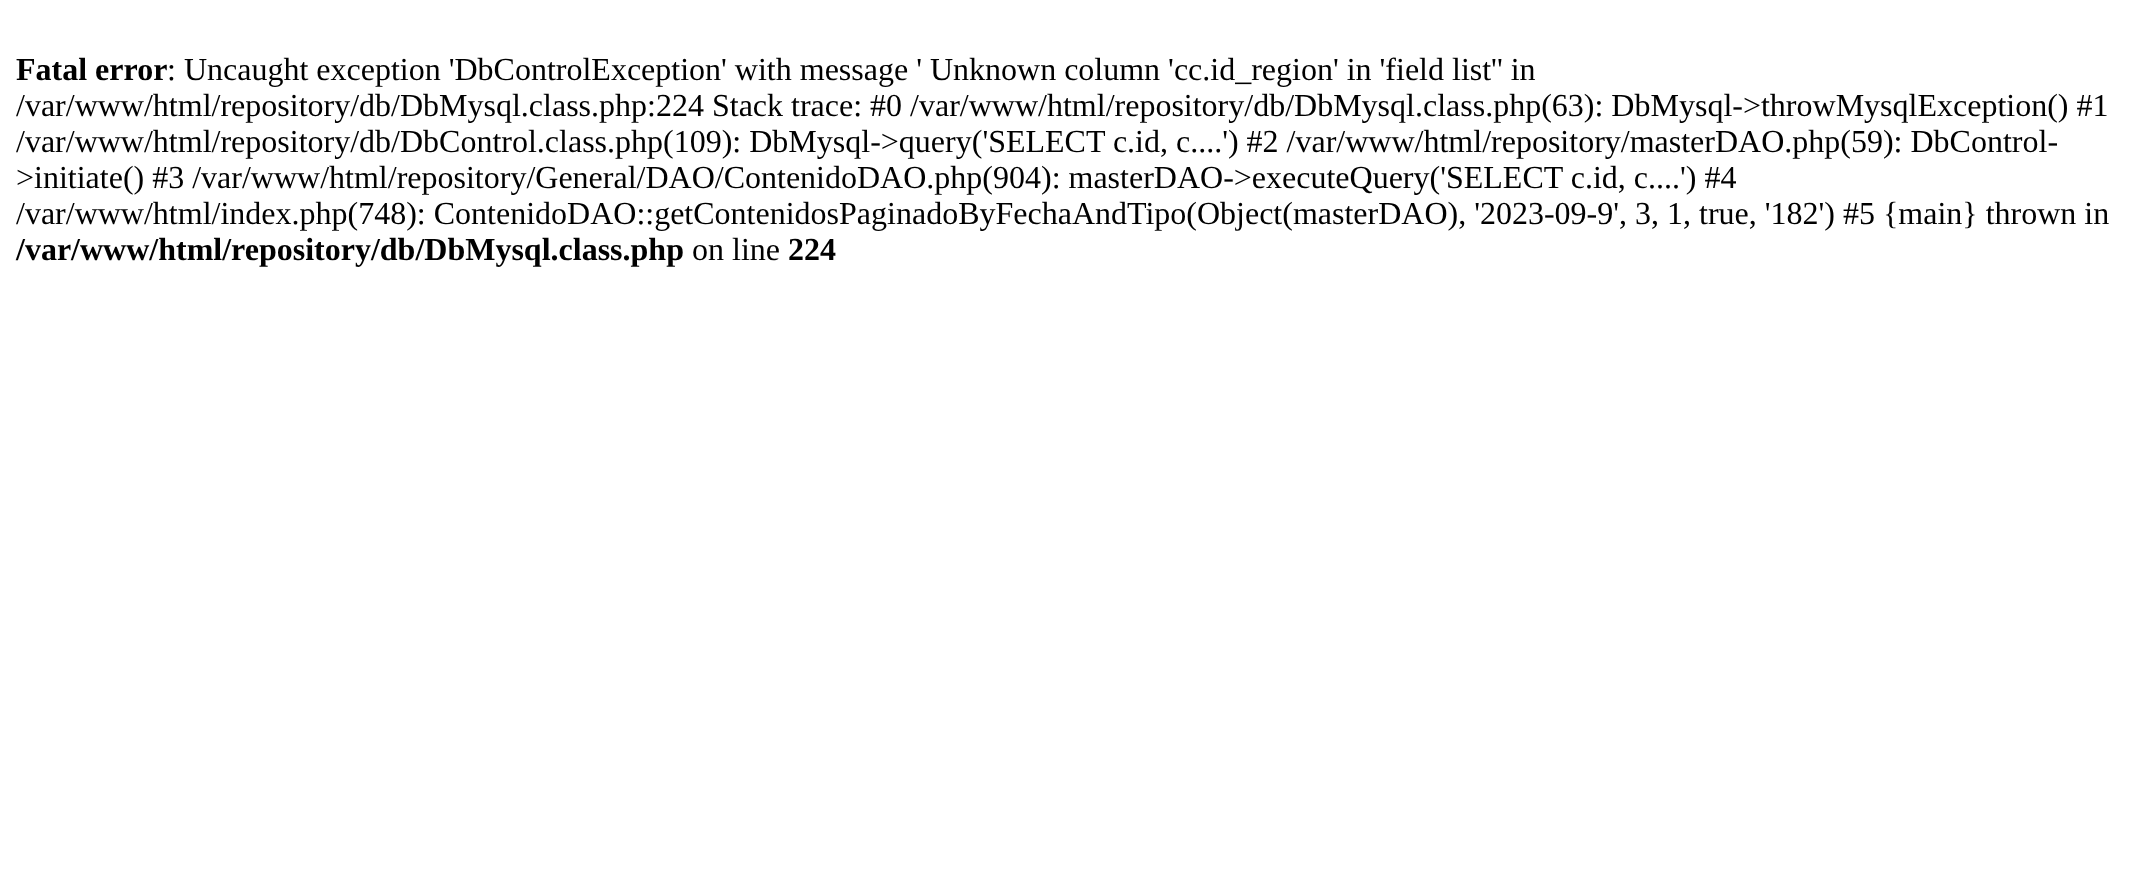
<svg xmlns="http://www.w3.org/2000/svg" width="2154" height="878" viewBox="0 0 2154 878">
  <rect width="100%" height="100%" fill="#fff"/>
  <text x="16" y="80" font-family="Liberation Serif" font-size="32" font-weight="bold" fill="#000">Fatal error</text>
  <g font-family="Liberation Serif" font-size="32" fill="#000">
    <text x="167" y="80">: Uncaught exception 'DbControlException' with message ' Unknown column 'cc.id_region' in 'field list'' in</text>
    <text x="16" y="116">/var/www/html/repository/db/DbMysql.class.php:224 Stack trace: #0 /var/www/html/repository/db/DbMysql.class.php(63): DbMysql-&gt;throwMysqlException() #1</text>
    <text x="16" y="152">/var/www/html/repository/db/DbControl.class.php(109): DbMysql-&gt;query('SELECT c.id, c....') #2 /var/www/html/repository/masterDAO.php(59): DbControl-</text>
    <text x="16" y="188">&gt;initiate() #3 /var/www/html/repository/General/DAO/ContenidoDAO.php(904): masterDAO-&gt;executeQuery('SELECT c.id, c....') #4</text>
    <text x="16" y="224">/var/www/html/index.php(748): ContenidoDAO::getContenidosPaginadoByFechaAndTipo(Object(masterDAO), '2023-09-9', 3, 1, true, '182') #5 {main} thrown in</text>
  </g>
  <text x="16" y="260" font-family="Liberation Serif" font-size="32" font-weight="bold" fill="#000">/var/www/html/repository/db/DbMysql.class.php</text>
  <text x="692" y="260" font-family="Liberation Serif" font-size="32" fill="#000">on line</text>
  <text x="788" y="260" font-family="Liberation Serif" font-size="32" font-weight="bold" fill="#000">224</text>
</svg>
